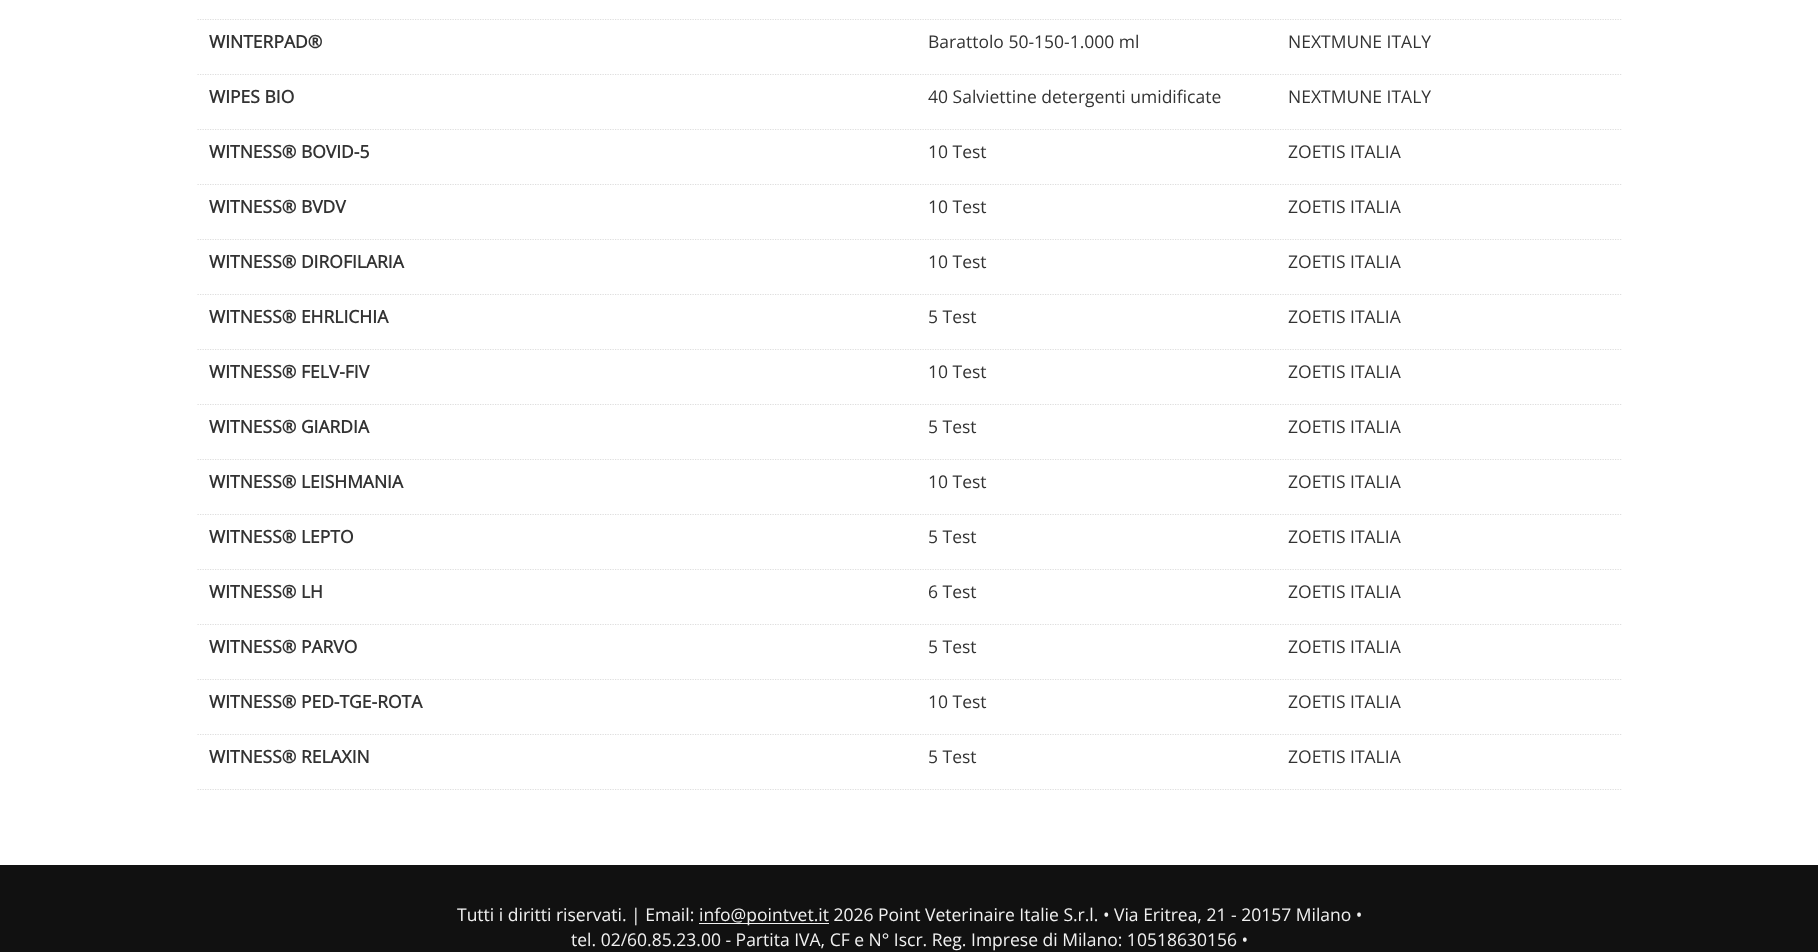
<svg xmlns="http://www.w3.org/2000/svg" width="1818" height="952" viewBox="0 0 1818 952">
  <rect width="100%" height="100%" fill="#fff"/>
  <path d="M197.5 19.5H1622.5" fill="none" stroke="#dedede" stroke-width="1.2" stroke-dasharray="1.25 1.25"/>
  <path d="M197.5 74.5H1622.5" fill="none" stroke="#dedede" stroke-width="1.2" stroke-dasharray="1.25 1.25"/>
  <path d="M197.5 129.5H1622.5" fill="none" stroke="#dedede" stroke-width="1.2" stroke-dasharray="1.25 1.25"/>
  <path d="M197.5 184.5H1622.5" fill="none" stroke="#dedede" stroke-width="1.2" stroke-dasharray="1.25 1.25"/>
  <path d="M197.5 239.5H1622.5" fill="none" stroke="#dedede" stroke-width="1.2" stroke-dasharray="1.25 1.25"/>
  <path d="M197.5 294.5H1622.5" fill="none" stroke="#dedede" stroke-width="1.2" stroke-dasharray="1.25 1.25"/>
  <path d="M197.5 349.5H1622.5" fill="none" stroke="#dedede" stroke-width="1.2" stroke-dasharray="1.25 1.25"/>
  <path d="M197.5 404.5H1622.5" fill="none" stroke="#dedede" stroke-width="1.2" stroke-dasharray="1.25 1.25"/>
  <path d="M197.5 459.5H1622.5" fill="none" stroke="#dedede" stroke-width="1.2" stroke-dasharray="1.25 1.25"/>
  <path d="M197.5 514.5H1622.5" fill="none" stroke="#dedede" stroke-width="1.2" stroke-dasharray="1.25 1.25"/>
  <path d="M197.5 569.5H1622.5" fill="none" stroke="#dedede" stroke-width="1.2" stroke-dasharray="1.25 1.25"/>
  <path d="M197.5 624.5H1622.5" fill="none" stroke="#dedede" stroke-width="1.2" stroke-dasharray="1.25 1.25"/>
  <path d="M197.5 679.5H1622.5" fill="none" stroke="#dedede" stroke-width="1.2" stroke-dasharray="1.25 1.25"/>
  <path d="M197.5 734.5H1622.5" fill="none" stroke="#dedede" stroke-width="1.2" stroke-dasharray="1.25 1.25"/>
  <path d="M197.5 789.5H1622.5" fill="none" stroke="#dedede" stroke-width="1.2" stroke-dasharray="1.25 1.25"/>
  <path d="M0 865h1818v87H0z" fill="#111"/>
  <path d="M699 923h130v1H699z" fill="#f1f1f1"/>
  <text x="209" y="48" font-family="Open Sans" font-size="17.5" font-weight="bold" fill="#333">WINTERPAD®</text>
  <g font-family="Open Sans" font-size="17.5" fill="#333">
    <text x="928" y="48">Barattolo 50-150-1.000 ml</text>
    <text x="1288" y="48">NEXTMUNE ITALY</text>
  </g>
  <text x="209" y="103" font-family="Open Sans" font-size="17.5" font-weight="bold" fill="#333">WIPES BIO</text>
  <g font-family="Open Sans" font-size="17.5" fill="#333">
    <text x="928" y="103">40 Salviettine detergenti umidificate</text>
    <text x="1288" y="103">NEXTMUNE ITALY</text>
  </g>
  <text x="209" y="158" font-family="Open Sans" font-size="17.5" font-weight="bold" fill="#333">WITNESS® BOVID-5</text>
  <g font-family="Open Sans" font-size="17.5" fill="#333">
    <text x="928" y="158">10 Test</text>
    <text x="1288" y="158">ZOETIS ITALIA</text>
  </g>
  <text x="209" y="213" font-family="Open Sans" font-size="17.5" font-weight="bold" fill="#333">WITNESS® BVDV</text>
  <g font-family="Open Sans" font-size="17.5" fill="#333">
    <text x="928" y="213">10 Test</text>
    <text x="1288" y="213">ZOETIS ITALIA</text>
  </g>
  <text x="209" y="268" font-family="Open Sans" font-size="17.5" font-weight="bold" fill="#333">WITNESS® DIROFILARIA</text>
  <g font-family="Open Sans" font-size="17.5" fill="#333">
    <text x="928" y="268">10 Test</text>
    <text x="1288" y="268">ZOETIS ITALIA</text>
  </g>
  <text x="209" y="323" font-family="Open Sans" font-size="17.5" font-weight="bold" fill="#333">WITNESS® EHRLICHIA</text>
  <g font-family="Open Sans" font-size="17.5" fill="#333">
    <text x="928" y="323">5 Test</text>
    <text x="1288" y="323">ZOETIS ITALIA</text>
  </g>
  <text x="209" y="378" font-family="Open Sans" font-size="17.5" font-weight="bold" fill="#333">WITNESS® FELV-FIV</text>
  <g font-family="Open Sans" font-size="17.5" fill="#333">
    <text x="928" y="378">10 Test</text>
    <text x="1288" y="378">ZOETIS ITALIA</text>
  </g>
  <text x="209" y="433" font-family="Open Sans" font-size="17.5" font-weight="bold" fill="#333">WITNESS® GIARDIA</text>
  <g font-family="Open Sans" font-size="17.5" fill="#333">
    <text x="928" y="433">5 Test</text>
    <text x="1288" y="433">ZOETIS ITALIA</text>
  </g>
  <text x="209" y="488" font-family="Open Sans" font-size="17.5" font-weight="bold" fill="#333">WITNESS® LEISHMANIA</text>
  <g font-family="Open Sans" font-size="17.5" fill="#333">
    <text x="928" y="488">10 Test</text>
    <text x="1288" y="488">ZOETIS ITALIA</text>
  </g>
  <text x="209" y="543" font-family="Open Sans" font-size="17.5" font-weight="bold" fill="#333">WITNESS® LEPTO</text>
  <g font-family="Open Sans" font-size="17.5" fill="#333">
    <text x="928" y="543">5 Test</text>
    <text x="1288" y="543">ZOETIS ITALIA</text>
  </g>
  <text x="209" y="598" font-family="Open Sans" font-size="17.5" font-weight="bold" fill="#333">WITNESS® LH</text>
  <g font-family="Open Sans" font-size="17.5" fill="#333">
    <text x="928" y="598">6 Test</text>
    <text x="1288" y="598">ZOETIS ITALIA</text>
  </g>
  <text x="209" y="653" font-family="Open Sans" font-size="17.5" font-weight="bold" fill="#333">WITNESS® PARVO</text>
  <g font-family="Open Sans" font-size="17.5" fill="#333">
    <text x="928" y="653">5 Test</text>
    <text x="1288" y="653">ZOETIS ITALIA</text>
  </g>
  <text x="209" y="708" font-family="Open Sans" font-size="17.5" font-weight="bold" fill="#333">WITNESS® PED-TGE-ROTA</text>
  <g font-family="Open Sans" font-size="17.5" fill="#333">
    <text x="928" y="708">10 Test</text>
    <text x="1288" y="708">ZOETIS ITALIA</text>
  </g>
  <text x="209" y="763" font-family="Open Sans" font-size="17.5" font-weight="bold" fill="#333">WITNESS® RELAXIN</text>
  <g font-family="Open Sans" font-size="17.5" fill="#333">
    <text x="928" y="763">5 Test</text>
    <text x="1288" y="763">ZOETIS ITALIA</text>
  </g>
  <g font-family="Open Sans" font-size="17.5" fill="#f1f1f1">
    <text x="457" y="921">Tutti i diritti riservati. | Email:</text>
    <text x="699" y="921">info@pointvet.it 2026 Point Veterinaire Italie S.r.l. • Via Eritrea, 21 - 20157 Milano •</text>
    <text x="571" y="946">tel. 02/60.85.23.00 - Partita IVA, CF e N° Iscr. Reg. Imprese di Milano: 10518630156 •</text>
  </g>
</svg>
